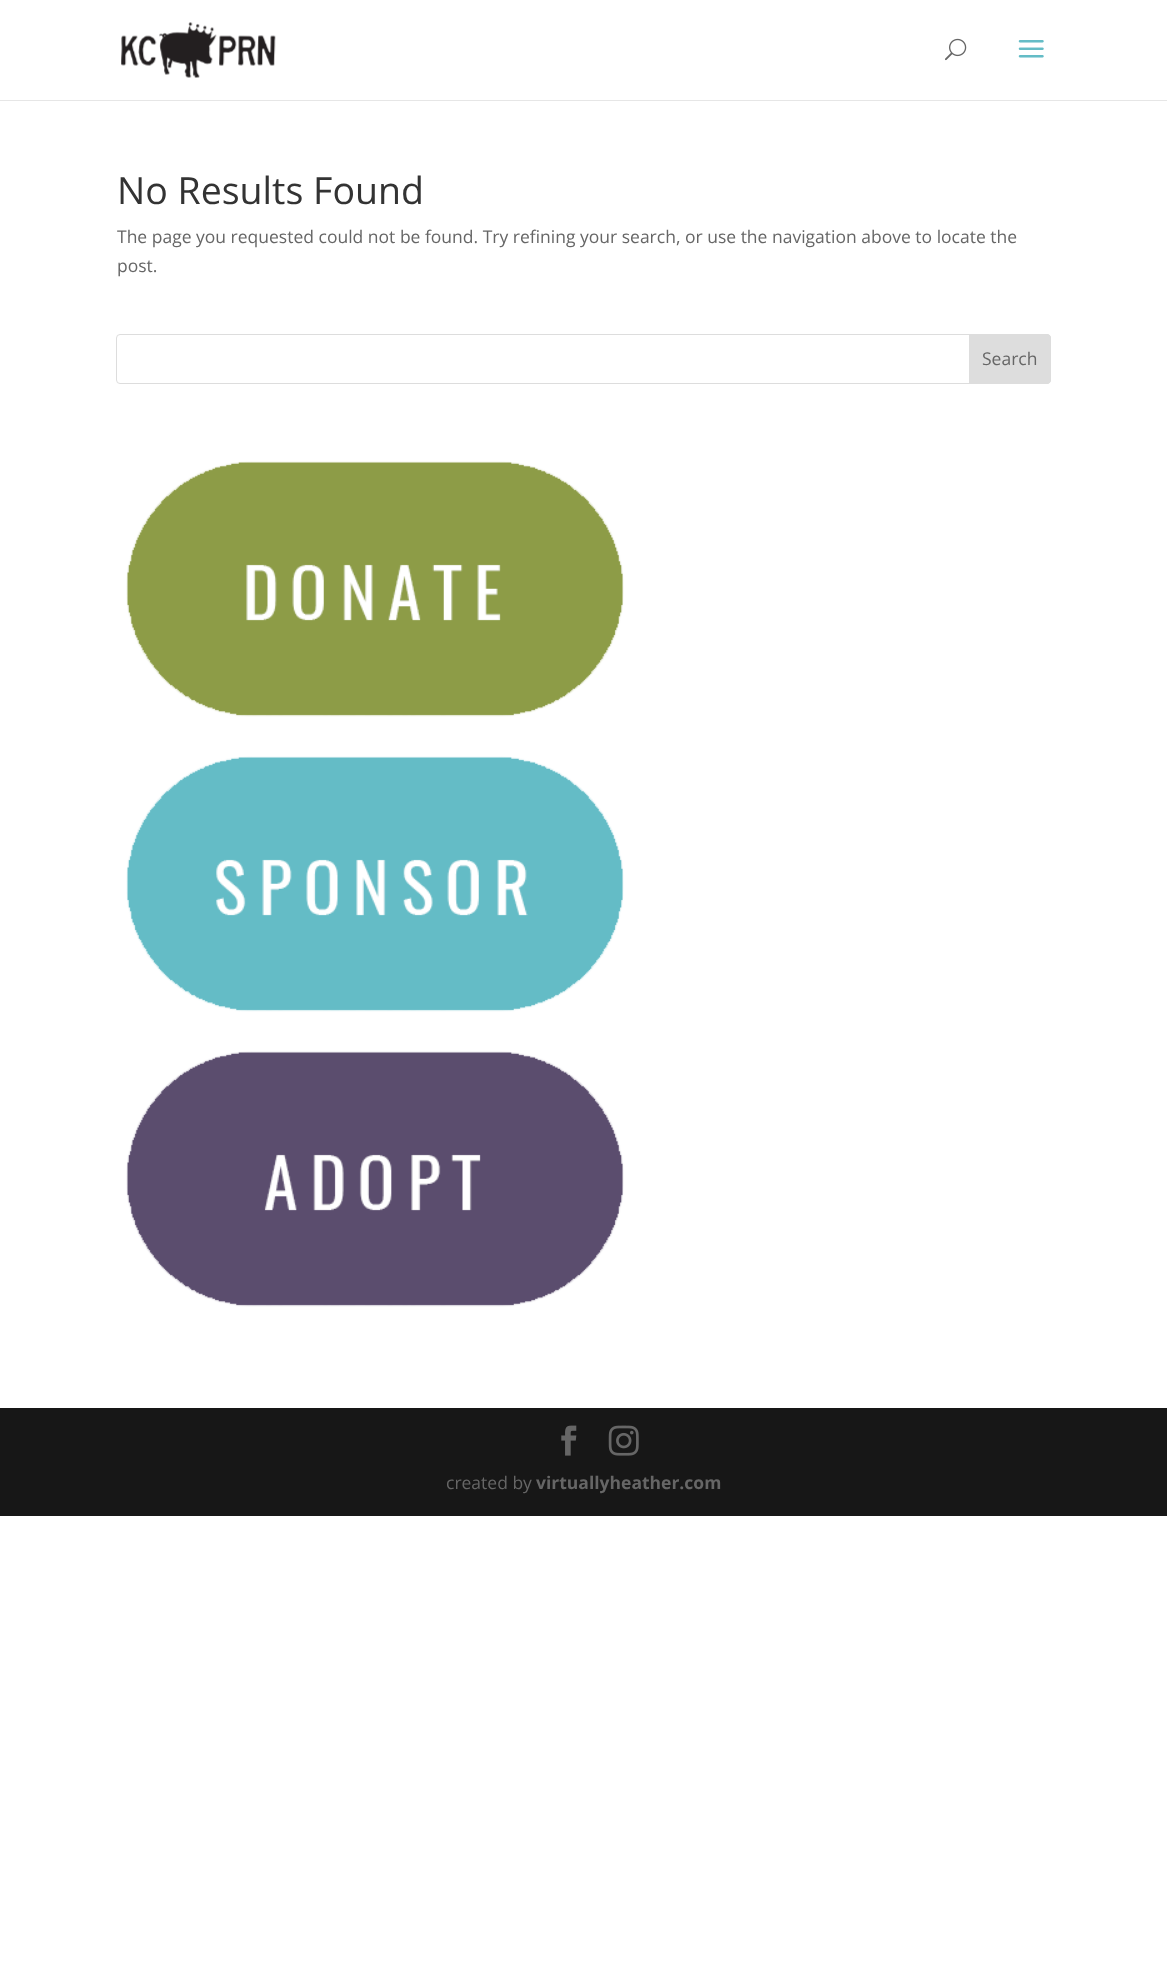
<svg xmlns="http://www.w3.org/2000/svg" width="1167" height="1978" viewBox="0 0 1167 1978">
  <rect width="100%" height="100%" fill="#fff"/>
  <path d="M0 100V101H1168V1V100Z" fill="#e6e6e6"/>
  <image x="121" y="22" width="155" height="56" href="img/1.png"/>
  <image x="945" y="38" width="22" height="23" href="img/2.png"/>
  <image x="1018" y="40" width="26" height="18" href="img/3.png"/>
  <rect x="116.5" y="334.5" width="934" height="49" rx="3.5" fill="none" stroke="#ddd"/>
  <path d="M969.5 334.5H1047C1049 334.5 1050.5 336 1050.5 338V380C1050.5 382 1049 383.5 1047 383.5H969.5Z" fill="#ddd" stroke="#ddd"/>
  <image x="126" y="461" width="498" height="256" href="img/4.png"/>
  <image x="126" y="756" width="498" height="256" href="img/5.png"/>
  <image x="126" y="1051" width="498" height="256" href="img/6.png"/>
  <path d="M0 1408h1167v108H0z" fill="#171717"/>
  <image x="561" y="1425" width="16" height="31" href="img/7.png"/>
  <image x="608" y="1425" width="31" height="31" href="img/8.png"/>
  <text x="117" y="204" font-family="Open Sans" font-size="37.5" fill="#333">No Results Found</text>
  <g font-family="Open Sans" font-size="17.5" fill="#666">
    <text x="117" y="243">The page you requested could not be found. Try refining your search, or use the navigation above to locate the</text>
    <text x="117" y="272">post.</text>
    <text x="982" y="365">Search</text>
    <text x="446" y="1489">created by</text>
  </g>
  <text x="536" y="1489" font-family="Open Sans" font-size="17.5" font-weight="bold" fill="#666">virtuallyheather.com</text>
</svg>
